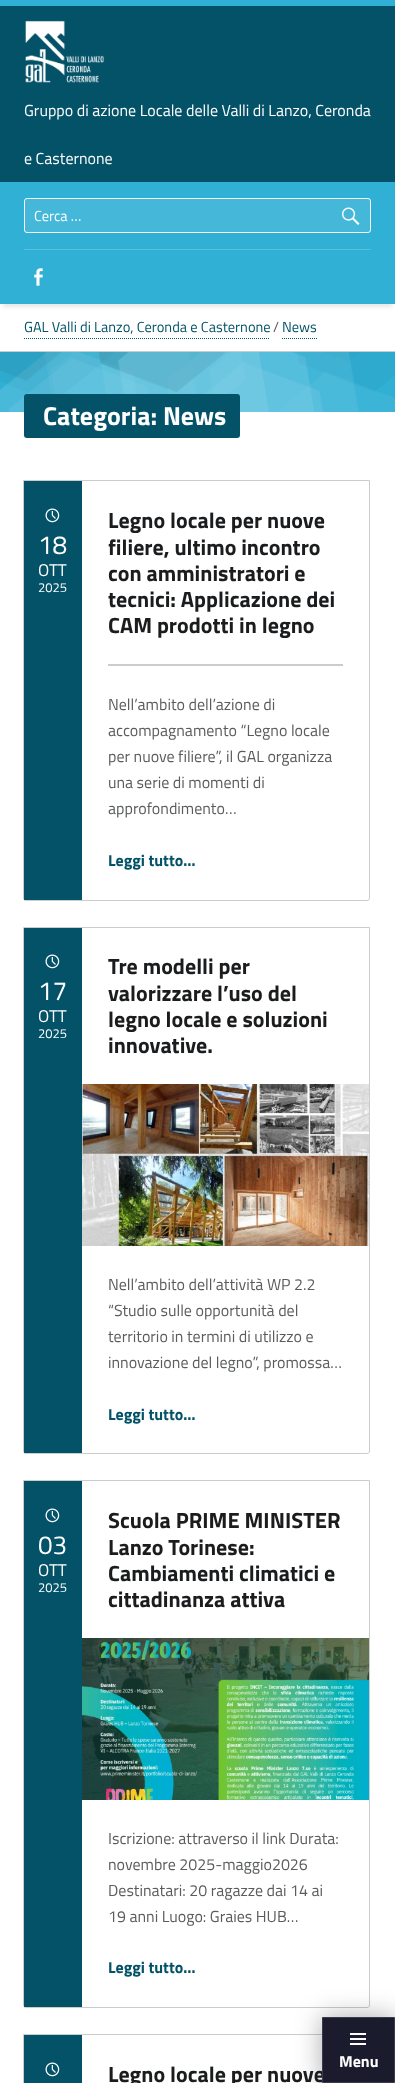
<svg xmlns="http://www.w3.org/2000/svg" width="395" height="2083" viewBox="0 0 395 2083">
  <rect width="100%" height="100%" fill="#fff"/>
  <path d="M3 9h389v298H3z" fill="#0000001a" filter="blur(2px)"/>
  <path d="M0 6h395v176H0z" fill="#035268"/>
  <path d="M0 0h395v6H0z" fill="#30b0d5"/>
  <image x="25" y="20" width="80" height="63" href="img/1.png"/>
  <path d="M23.5 1480.5H369.5V2005C369.5 2006.5 368.5 2007.5 367 2007.5H26C24.5 2007.5 23.5 2006.5 23.5 2005Z" fill="none" stroke="#caccce"/>
  <path d="M23.5 2034.5h346v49H23.5z" fill="none" stroke="#caccce"/>
  <path d="M322 2017h73v66H322z" fill="#00000054" filter="blur(13px)"/>
  <path d="M0 182h395v122H0z" fill="#30b0d5"/>
  <path d="M24 249h347v1H24z" fill="#58bfdd"/>
  <rect x="24.5" y="198.5" width="346" height="34" rx="2.5" fill="#45b8d9" stroke="#fafcfe"/>
  <image x="341" y="207" width="19" height="18" href="img/3.png"/>
  <image x="34" y="268" width="9" height="18" href="img/4.png"/>
  <path d="M0 351h395v1H0z" fill="#caccce"/>
  <path d="M24 338.5H270" fill="none" stroke="#035268" stroke-dasharray="1 1"/>
  <path d="M282 338.5H317" fill="none" stroke="#035268" stroke-dasharray="1 1"/>
  <path d="M0 352h395v60H0z" fill="#30b0d5"/>
  <image x="0" y="352" width="395" height="60" href="img/5.png"/>
  <rect x="24" y="394" width="216" height="44" rx="3" fill="#035268"/>
  <path d="M23.5 480.5H369.5V898C369.5 899.5 368.5 900.5 367 900.5H26C24.5 900.5 23.5 899.5 23.5 898Z" fill="none" stroke="#caccce"/>
  <path d="M24 481h58v419H24z" fill="#035268"/>
  <image x="45" y="508" width="15" height="15" href="img/6.png"/>
  <path d="M108 664h235v2H108z" fill="#caccce"/>
  <path d="M23.5 927.5H369.5V1451C369.5 1452.5 368.5 1453.5 367 1453.5H26C24.5 1453.5 23.5 1452.5 23.5 1451Z" fill="none" stroke="#caccce"/>
  <path d="M24 928h58v525H24z" fill="#035268"/>
  <image x="45" y="954" width="15" height="15" href="img/6.png"/>
  <image x="82" y="1084" width="287" height="162" href="img/7.png"/>
  <path d="M24 1481h58v526H24z" fill="#035268"/>
  <image x="45" y="1508" width="15" height="15" href="img/6.png"/>
  <image x="82" y="1638" width="287" height="162" href="img/8.png"/>
  <path d="M24 2035h58v48H24z" fill="#035268"/>
  <image x="45" y="2062" width="15" height="15" href="img/6.png"/>
  <g font-family="Titillium Web" font-size="16" fill="#fff">
    <text x="24" y="116">Gruppo di azione Locale delle Valli di Lanzo, Ceronda</text>
    <text x="24" y="164">e Casternone</text>
  </g>
  <text x="34" y="221" font-family="Titillium Web" font-size="14.5" fill="#fff">Cerca …</text>
  <text x="24" y="332" font-family="Titillium Web" font-size="14.5" fill="#035268">GAL Valli di Lanzo, Ceronda e Casternone</text>
  <text x="273" y="332" font-family="Titillium Web" font-size="14.5" fill="#5a5c5e">/</text>
  <text x="282" y="332" font-family="Titillium Web" font-size="14.5" fill="#035268">News</text>
  <text x="43" y="425" font-family="Titillium Web" font-size="26" font-weight="bold" fill="#fff">Categoria: News</text>
  <text x="38" y="554" font-family="Titillium Web" font-size="26" fill="#fff">18</text>
  <text x="38" y="576" font-family="Titillium Web" font-size="17" fill="#fff">OTT</text>
  <text x="38" y="592" font-family="Titillium Web" font-size="13" fill="#fff">2025</text>
  <g font-family="Titillium Web" font-size="22" font-weight="bold" fill="#1a1c1e">
    <text x="108" y="528">Legno locale per nuove</text>
    <text x="108" y="555">filiere, ultimo incontro</text>
    <text x="108" y="581">con amministratori e</text>
    <text x="108" y="607">tecnici: Applicazione dei</text>
    <text x="108" y="633">CAM prodotti in legno</text>
  </g>
  <g font-family="Titillium Web" font-size="16" fill="#5a5c5e">
    <text x="108" y="710">Nell’ambito dell’azione di</text>
    <text x="108" y="736">accompagnamento “Legno locale</text>
    <text x="108" y="762">per nuove filiere”, il GAL organizza</text>
    <text x="108" y="788">una serie di momenti di</text>
    <text x="108" y="814">approfondimento…</text>
  </g>
  <text x="108" y="866" font-family="Titillium Web" font-size="16" font-weight="bold" fill="#035268">Leggi tutto…</text>
  <text x="38" y="1000" font-family="Titillium Web" font-size="26" fill="#fff">17</text>
  <text x="38" y="1022" font-family="Titillium Web" font-size="17" fill="#fff">OTT</text>
  <text x="38" y="1038" font-family="Titillium Web" font-size="13" fill="#fff">2025</text>
  <g font-family="Titillium Web" font-size="22" font-weight="bold" fill="#1a1c1e">
    <text x="108" y="974">Tre modelli per</text>
    <text x="108" y="1001">valorizzare l’uso del</text>
    <text x="108" y="1027">legno locale e soluzioni</text>
    <text x="108" y="1053">innovative.</text>
  </g>
  <g font-family="Titillium Web" font-size="16" fill="#5a5c5e">
    <text x="108" y="1290">Nell’ambito dell’attività WP 2.2</text>
    <text x="108" y="1316">“Studio sulle opportunità del</text>
    <text x="108" y="1342">territorio in termini di utilizzo e</text>
    <text x="108" y="1368">innovazione del legno”, promossa…</text>
  </g>
  <text x="108" y="1420" font-family="Titillium Web" font-size="16" font-weight="bold" fill="#035268">Leggi tutto…</text>
  <text x="38" y="1554" font-family="Titillium Web" font-size="26" fill="#fff">03</text>
  <text x="38" y="1576" font-family="Titillium Web" font-size="17" fill="#fff">OTT</text>
  <text x="38" y="1592" font-family="Titillium Web" font-size="13" fill="#fff">2025</text>
  <g font-family="Titillium Web" font-size="22" font-weight="bold" fill="#1a1c1e">
    <text x="108" y="1528">Scuola PRIME MINISTER</text>
    <text x="108" y="1555">Lanzo Torinese:</text>
    <text x="108" y="1581">Cambiamenti climatici e</text>
    <text x="108" y="1607">cittadinanza attiva</text>
  </g>
  <g font-family="Titillium Web" font-size="16" fill="#5a5c5e">
    <text x="108" y="1844">Iscrizione: attraverso il link Durata:</text>
    <text x="108" y="1870">novembre 2025-maggio2026</text>
    <text x="108" y="1896">Destinatari: 20 ragazze dai 14 ai</text>
    <text x="108" y="1922">19 anni Luogo: Graies HUB…</text>
  </g>
  <text x="108" y="1973" font-family="Titillium Web" font-size="16" font-weight="bold" fill="#035268">Leggi tutto…</text>
  <text x="108" y="2082" font-family="Titillium Web" font-size="22" font-weight="bold" fill="#1a1c1e">Legno locale per nuove</text>
  <path d="M322.5 2017.5h72v65H322.5z" fill="#1a1c2e" stroke="#3a3c4e"/>
  <text x="339" y="2067" font-family="Titillium Web" font-size="16" font-weight="bold" fill="#fff">Menu</text>
  <image x="350" y="2033" width="16" height="12" href="img/2.png"/>
</svg>
